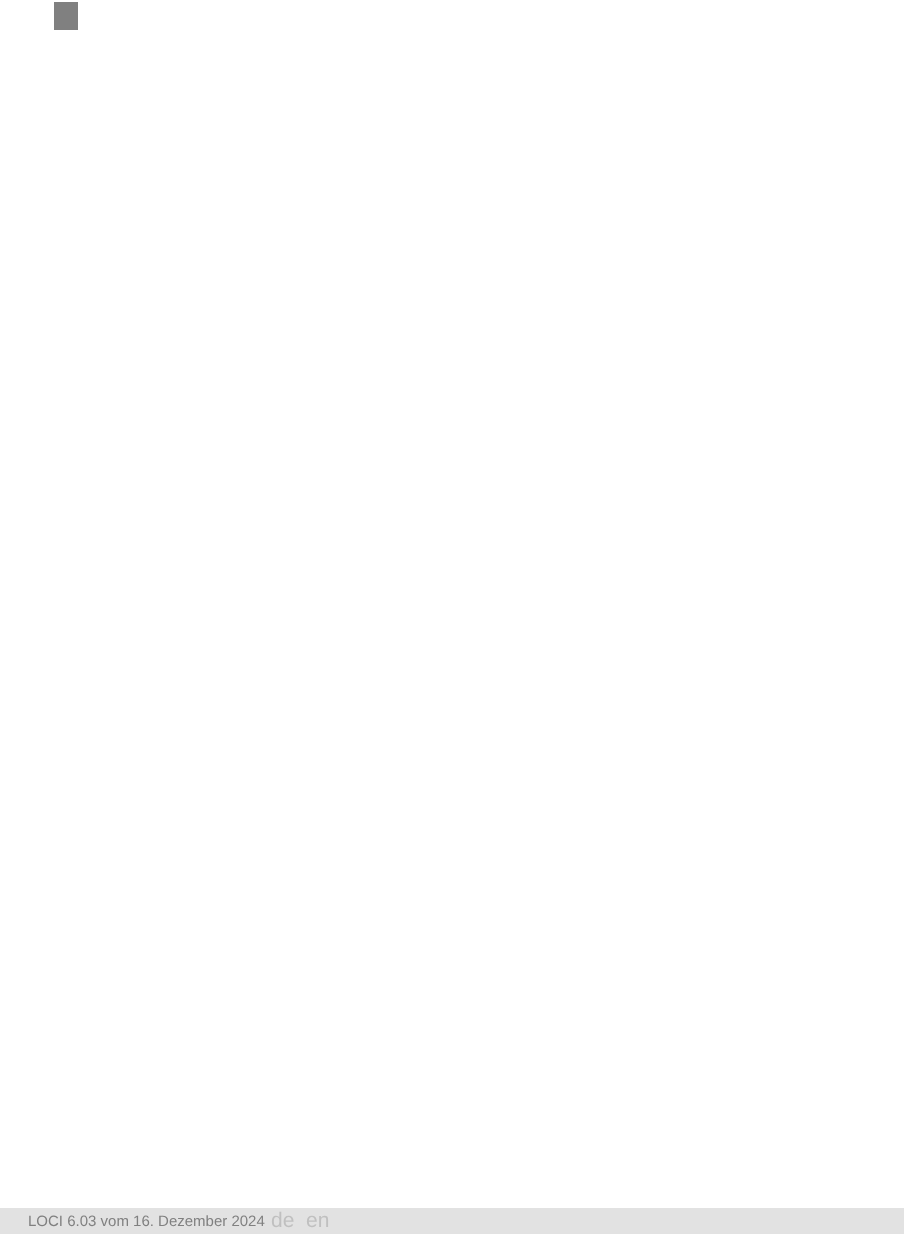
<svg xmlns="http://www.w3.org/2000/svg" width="904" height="1234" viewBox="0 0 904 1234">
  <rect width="100%" height="100%" fill="#fff"/>
  <path d="M54 2h24v28H54z" fill="#808080"/>
  <path d="M0 1208h904v26H0z" fill="#e2e2e2"/>
  <text x="28" y="1226" font-family="Liberation Sans" font-size="15" fill="#808080">LOCI 6.03 vom 16. Dezember 2024</text>
  <g font-family="Liberation Sans" font-size="21" fill="#c0c0c0">
    <text x="271" y="1227">de</text>
    <text x="306" y="1227">en</text>
  </g>
</svg>
